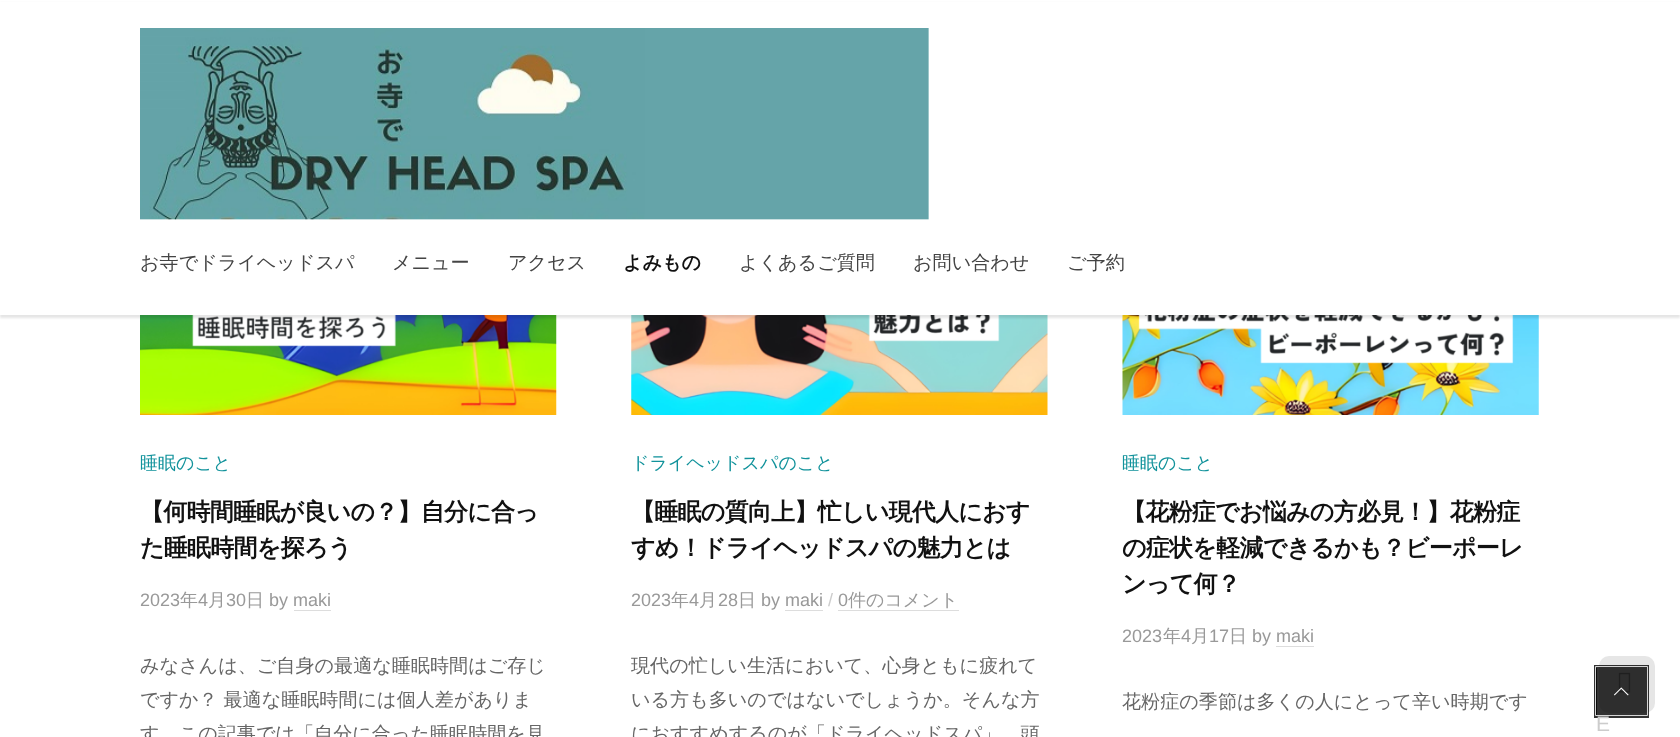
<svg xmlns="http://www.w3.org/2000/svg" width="1680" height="737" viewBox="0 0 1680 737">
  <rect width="100%" height="100%" fill="#fff"/>
  <image x="140" y="315" width="417" height="100" href="img/2.png"/>
  <image x="631" y="315" width="417" height="100" href="img/3.png"/>
  <image x="1122" y="315" width="417" height="100" href="img/4.png"/>
  <path d="M0 3h1680v315H0z" fill="#0000001a" filter="blur(1px)"/>
  <path d="M0 2h1680v313H0z" fill="#fff"/>
  <image x="140" y="28" width="789" height="192" href="img/1.png"/>
  <path d="M294 610h37v1H294z" fill="#ddd"/>
  <path d="M785 610h38v1H785z" fill="#ddd"/>
  <path d="M838 610h121v1H838z" fill="#ddd"/>
  <path d="M1276 646h38v1H1276z" fill="#ddd"/>
  <rect x="1599" y="656" width="56" height="57" rx="10" fill="#e6e6e6"/>
  <image x="1618" y="672" width="13" height="21" href="img/5.png"/>
  <path d="M1595.5 666.5h52v50H1595.5z" fill="none" stroke="#000000cc" stroke-width="3"/>
  <path d="M1595.5 666.5h52v49H1595.5z" fill="none" stroke="#ffffffcc"/>
  <path d="M1596 668h50v47H1596z" fill="#000000cc"/>
  <image x="1614" y="687" width="15" height="9" href="img/6.png"/>
  <g font-family="WenQuanYi Zen Hei" font-size="19.1" font-weight="500" fill="#444">
    <text x="140" y="269">お寺でドライヘッドスパ</text>
    <text x="392" y="269">メニュー</text>
    <text x="508" y="269">アクセス</text>
  </g>
  <text x="623" y="269" font-family="WenQuanYi Zen Hei" font-size="19.1" font-weight="bold" fill="#111">よみもの</text>
  <g font-family="WenQuanYi Zen Hei" font-size="19.1" font-weight="500" fill="#444">
    <text x="739" y="269">よくあるご質問</text>
    <text x="913" y="269">お問い合わせ</text>
    <text x="1067" y="269">ご予約</text>
  </g>
  <text x="140" y="469" font-family="WenQuanYi Zen Hei" font-size="18" font-weight="500" fill="#11929b">睡眠のこと</text>
  <g font-family="WenQuanYi Zen Hei" font-size="24" font-weight="bold" letter-spacing="-0.75" fill="#111">
    <text x="140" y="520">【何時間睡眠が良いの？】自分に合っ</text>
    <text x="140" y="556">た睡眠時間を探ろう</text>
  </g>
  <text x="140" y="606" font-family="Liberation Sans" font-size="18" fill="#999">2023</text>
  <text x="180" y="606" font-family="WenQuanYi Zen Hei" font-size="18" font-weight="500" fill="#999">年</text>
  <text x="198" y="606" font-family="Liberation Sans" font-size="18" fill="#999">4</text>
  <text x="208" y="606" font-family="WenQuanYi Zen Hei" font-size="18" font-weight="500" fill="#999">月</text>
  <text x="226" y="606" font-family="Liberation Sans" font-size="18" fill="#999">30</text>
  <text x="246" y="606" font-family="WenQuanYi Zen Hei" font-size="18" font-weight="500" fill="#999">日</text>
  <text x="269" y="606" font-family="Liberation Sans" font-size="18" fill="#999">by maki</text>
  <g font-family="WenQuanYi Zen Hei" font-size="19.1" font-weight="500" fill="#666">
    <text x="140" y="672">みなさんは、ご自身の最適な睡眠時間はご存じ</text>
    <text x="140" y="706">ですか？ 最適な睡眠時間には個人差がありま</text>
    <text x="140" y="740">す。この記事では「自分に合った睡眠時間を見</text>
  </g>
  <text x="631" y="469" font-family="WenQuanYi Zen Hei" font-size="18" font-weight="500" fill="#11929b">ドライヘッドスパのこと</text>
  <g font-family="WenQuanYi Zen Hei" font-size="24" font-weight="bold" letter-spacing="-0.75" fill="#111">
    <text x="631" y="520">【睡眠の質向上】忙しい現代人におす</text>
    <text x="631" y="556">すめ！ドライヘッドスパの魅力とは</text>
  </g>
  <text x="631" y="606" font-family="Liberation Sans" font-size="18" fill="#999">2023</text>
  <text x="671" y="606" font-family="WenQuanYi Zen Hei" font-size="18" font-weight="500" fill="#999">年</text>
  <text x="689" y="606" font-family="Liberation Sans" font-size="18" fill="#999">4</text>
  <text x="699" y="606" font-family="WenQuanYi Zen Hei" font-size="18" font-weight="500" fill="#999">月</text>
  <text x="718" y="606" font-family="Liberation Sans" font-size="18" fill="#999">28</text>
  <text x="738" y="606" font-family="WenQuanYi Zen Hei" font-size="18" font-weight="500" fill="#999">日</text>
  <text x="761" y="606" font-family="Liberation Sans" font-size="18" fill="#999">by maki</text>
  <text x="828" y="606" font-family="Liberation Sans" font-size="18" fill="#ccc">/</text>
  <text x="838" y="606" font-family="Liberation Sans" font-size="18" fill="#999">0</text>
  <text x="848" y="606" font-family="WenQuanYi Zen Hei" font-size="18" font-weight="500" fill="#999">件のコメント</text>
  <g font-family="WenQuanYi Zen Hei" font-size="19.1" font-weight="500" fill="#666">
    <text x="631" y="672">現代の忙しい生活において、心身ともに疲れて</text>
    <text x="631" y="706">いる方も多いのではないでしょうか。そんな方</text>
    <text x="631" y="740">におすすめするのが「ドライヘッドスパ」。頭</text>
  </g>
  <text x="1122" y="469" font-family="WenQuanYi Zen Hei" font-size="18" font-weight="500" fill="#11929b">睡眠のこと</text>
  <g font-family="WenQuanYi Zen Hei" font-size="24" font-weight="bold" letter-spacing="-0.75" fill="#111">
    <text x="1122" y="520">【花粉症でお悩みの方必見！】花粉症</text>
    <text x="1122" y="556">の症状を軽減できるかも？ビーポーレ</text>
    <text x="1122" y="592">ンって何？</text>
  </g>
  <text x="1122" y="642" font-family="Liberation Sans" font-size="18" fill="#999">2023</text>
  <text x="1163" y="642" font-family="WenQuanYi Zen Hei" font-size="18" font-weight="500" fill="#999">年</text>
  <text x="1181" y="642" font-family="Liberation Sans" font-size="18" fill="#999">4</text>
  <text x="1191" y="642" font-family="WenQuanYi Zen Hei" font-size="18" font-weight="500" fill="#999">月</text>
  <text x="1209" y="642" font-family="Liberation Sans" font-size="18" fill="#999">17</text>
  <text x="1229" y="642" font-family="WenQuanYi Zen Hei" font-size="18" font-weight="500" fill="#999">日</text>
  <text x="1252" y="642" font-family="Liberation Sans" font-size="18" fill="#999">by maki</text>
  <text x="1122" y="708" font-family="WenQuanYi Zen Hei" font-size="19.1" font-weight="500" fill="#666">花粉症の季節は多くの人にとって辛い時期です</text>
  <text x="1596" y="731" font-family="Liberation Sans" font-size="21" fill="#ccc">E</text>
</svg>
